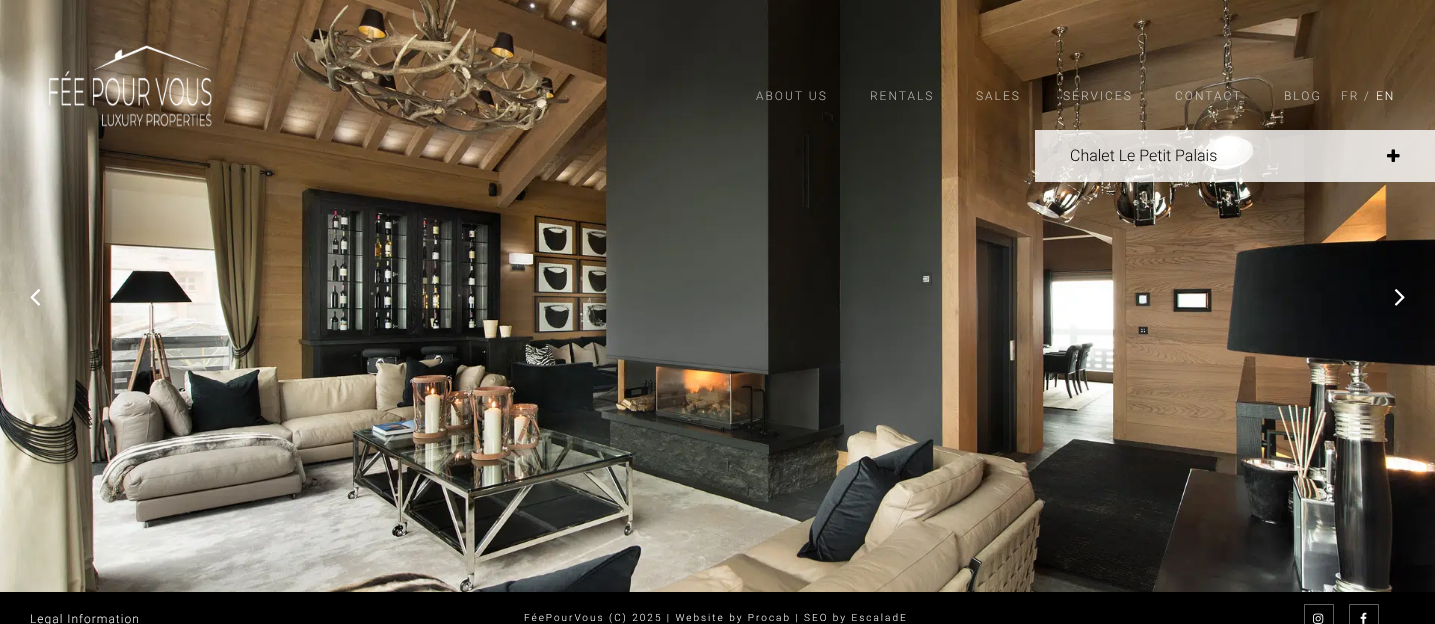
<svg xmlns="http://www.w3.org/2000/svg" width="1435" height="624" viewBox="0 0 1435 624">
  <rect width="100%" height="100%" fill="#fff"/>
  <image x="0" y="0" width="1435" height="592" href="img/1.png"/>
  <image x="30" y="289" width="10" height="17" href="img/2.png"/>
  <image x="1394" y="289" width="11" height="17" href="img/3.png"/>
  <image x="48" y="45" width="164" height="82" href="img/4.png"/>
  <path d="M1035 130h400v52H1035z" fill="#ffffffcc"/>
  <image x="1387" y="149" width="13" height="13" href="img/5.png"/>
  <path d="M0 592h1435v32H0z" fill="#000"/>
  <path d="M1304.5 604.5h29v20H1304.5z" fill="none" stroke="#616161"/>
  <image x="1313" y="613" width="11" height="11" href="img/6.png"/>
  <path d="M1349.5 604.5h29v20H1349.5z" fill="none" stroke="#616161"/>
  <image x="1360" y="612" width="7" height="12" href="img/7.png"/>
  <g font-family="Roboto" font-size="12" font-weight="300" letter-spacing="2" fill="#bab9b7">
    <text x="756" y="100">ABOUT US</text>
    <text x="870" y="100">RENTALS</text>
  </g>
  <text x="976" y="100" font-family="Roboto" font-size="12" font-weight="300" letter-spacing="2" fill="#cbc2b9">SALES</text>
  <text x="1063" y="100" font-family="Roboto" font-size="12" font-weight="300" letter-spacing="2" fill="#cdc8c2">SERVICES</text>
  <text x="1175" y="100" font-family="Roboto" font-size="12" font-weight="300" letter-spacing="2" fill="#d4cfc8">CONTACT</text>
  <text x="1284" y="100" font-family="Roboto" font-size="12" font-weight="300" letter-spacing="2" fill="#cdc8c2">BLOG</text>
  <text x="1341" y="100" font-family="Roboto" font-size="12" font-weight="300" letter-spacing="2" fill="#cbc2b9">FR</text>
  <text x="1364" y="100" font-family="Roboto" font-size="12" font-weight="300" fill="#cdc8c2">/</text>
  <text x="1376" y="100" font-family="Roboto" font-size="12" font-weight="300" letter-spacing="2" fill="#fff">EN</text>
  <text x="1070" y="161" font-family="Roboto" font-size="16" font-weight="300" fill="#000">Chalet Le Petit Palais</text>
  <text x="30" y="623" font-family="Roboto" font-size="12" font-weight="300" letter-spacing="1" fill="#f5f5f5">Legal Information</text>
  <text x="524" y="621" font-family="Roboto" font-size="10" font-weight="300" letter-spacing="2" fill="#fff">FéePourVous (C) 2025 | Website by Procab | SEO by EscaladE</text>
</svg>
